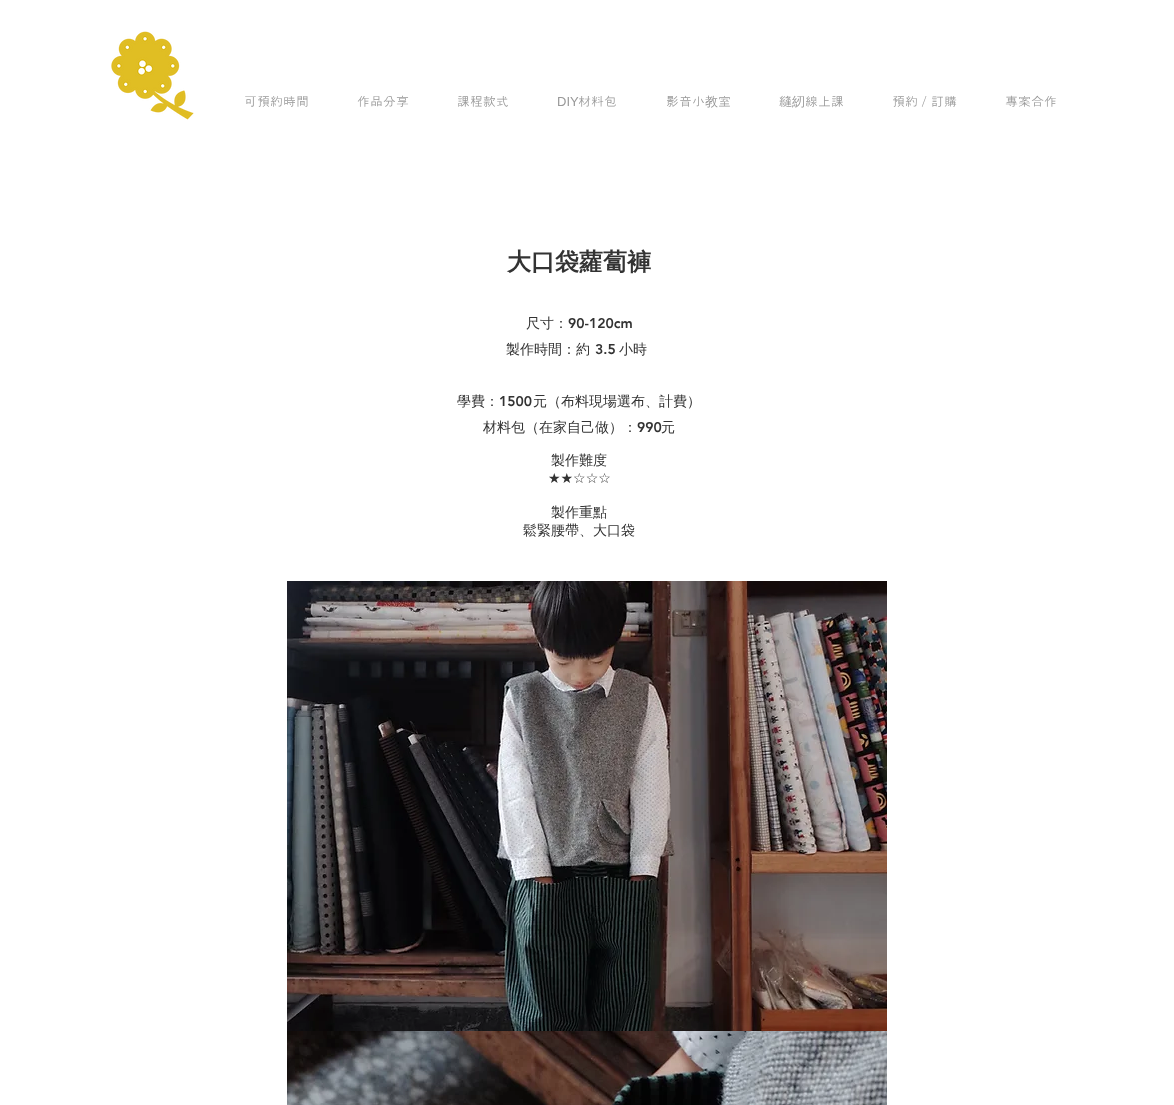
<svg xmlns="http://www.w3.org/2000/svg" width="1174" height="1105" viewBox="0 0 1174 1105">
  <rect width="100%" height="100%" fill="#fff"/>
  <image x="111" y="31" width="83" height="89" href="img/1.png"/>
  <image x="287" y="581" width="600" height="450" href="img/2.png"/>
  <image x="287" y="1031" width="600" height="74" href="img/3.png"/>
  <g font-family="Dotum" font-size="13" fill="#999">
    <text x="244" y="106">可預約時間</text>
    <text x="357" y="106">作品分享</text>
    <text x="457" y="106">課程款式</text>
  </g>
  <text x="557" y="106" font-family="Liberation Sans" font-size="13" fill="#999">DIY</text>
  <g font-family="Dotum" font-size="13" fill="#999">
    <text x="578" y="106">材料包</text>
    <text x="666" y="106">影音小</text>
  </g>
  <text x="705" y="106" font-family="WenQuanYi Zen Hei" font-size="13" font-weight="500" fill="#999">教</text>
  <g font-family="Dotum" font-size="13" fill="#999">
    <text x="718" y="106">室</text>
    <text x="779" y="106">縫</text>
  </g>
  <text x="792" y="106" font-family="WenQuanYi Zen Hei" font-size="13" font-weight="500" fill="#999">紉</text>
  <g font-family="Dotum" font-size="13" fill="#999">
    <text x="805" y="106">線上課</text>
    <text x="892" y="106">預約／訂購</text>
    <text x="1005" y="106">專案合作</text>
  </g>
  <text x="507" y="270" font-family="WenQuanYi Zen Hei" font-size="24" font-weight="bold" fill="#333">大口袋蘿蔔褲</text>
  <text x="526" y="328" font-family="WenQuanYi Zen Hei" font-size="14" font-weight="500" fill="#333">尺寸：</text>
  <text x="568" y="328" font-family="'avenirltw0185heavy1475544'" font-size="14" font-weight="900" fill="#333">90-120cm</text>
  <text x="506" y="354" font-family="WenQuanYi Zen Hei" font-size="14" font-weight="500" fill="#333">製作時間：約</text>
  <text x="595" y="354" font-family="'avenirltw0185heavy1475544'" font-size="14" font-weight="900" fill="#333">3.5</text>
  <g font-family="WenQuanYi Zen Hei" font-size="14" font-weight="500" fill="#333">
    <text x="619" y="354">小時</text>
    <text x="457" y="406">學費：</text>
  </g>
  <text x="499" y="406" font-family="'avenirltw0185heavy1475544'" font-size="14" font-weight="900" fill="#333">1500</text>
  <g font-family="WenQuanYi Zen Hei" font-size="14" font-weight="500" fill="#333">
    <text x="533" y="406">元（布料現場選布、計費）</text>
    <text x="483" y="432">材料包（在家自己做）：</text>
  </g>
  <text x="637" y="432" font-family="'avenirltw0185heavy1475544'" font-size="14" font-weight="900" fill="#333">990</text>
  <g font-family="WenQuanYi Zen Hei" font-size="14" font-weight="500" fill="#333">
    <text x="661" y="432">元</text>
    <text x="551" y="465">製作難度</text>
  </g>
  <text x="548" y="483" font-family="DejaVu Sans" font-size="14" fill="#333">★★☆☆☆</text>
  <g font-family="WenQuanYi Zen Hei" font-size="14" font-weight="500" fill="#333">
    <text x="551" y="517">製作重點</text>
    <text x="523" y="535">鬆緊腰帶、大口袋</text>
  </g>
</svg>
